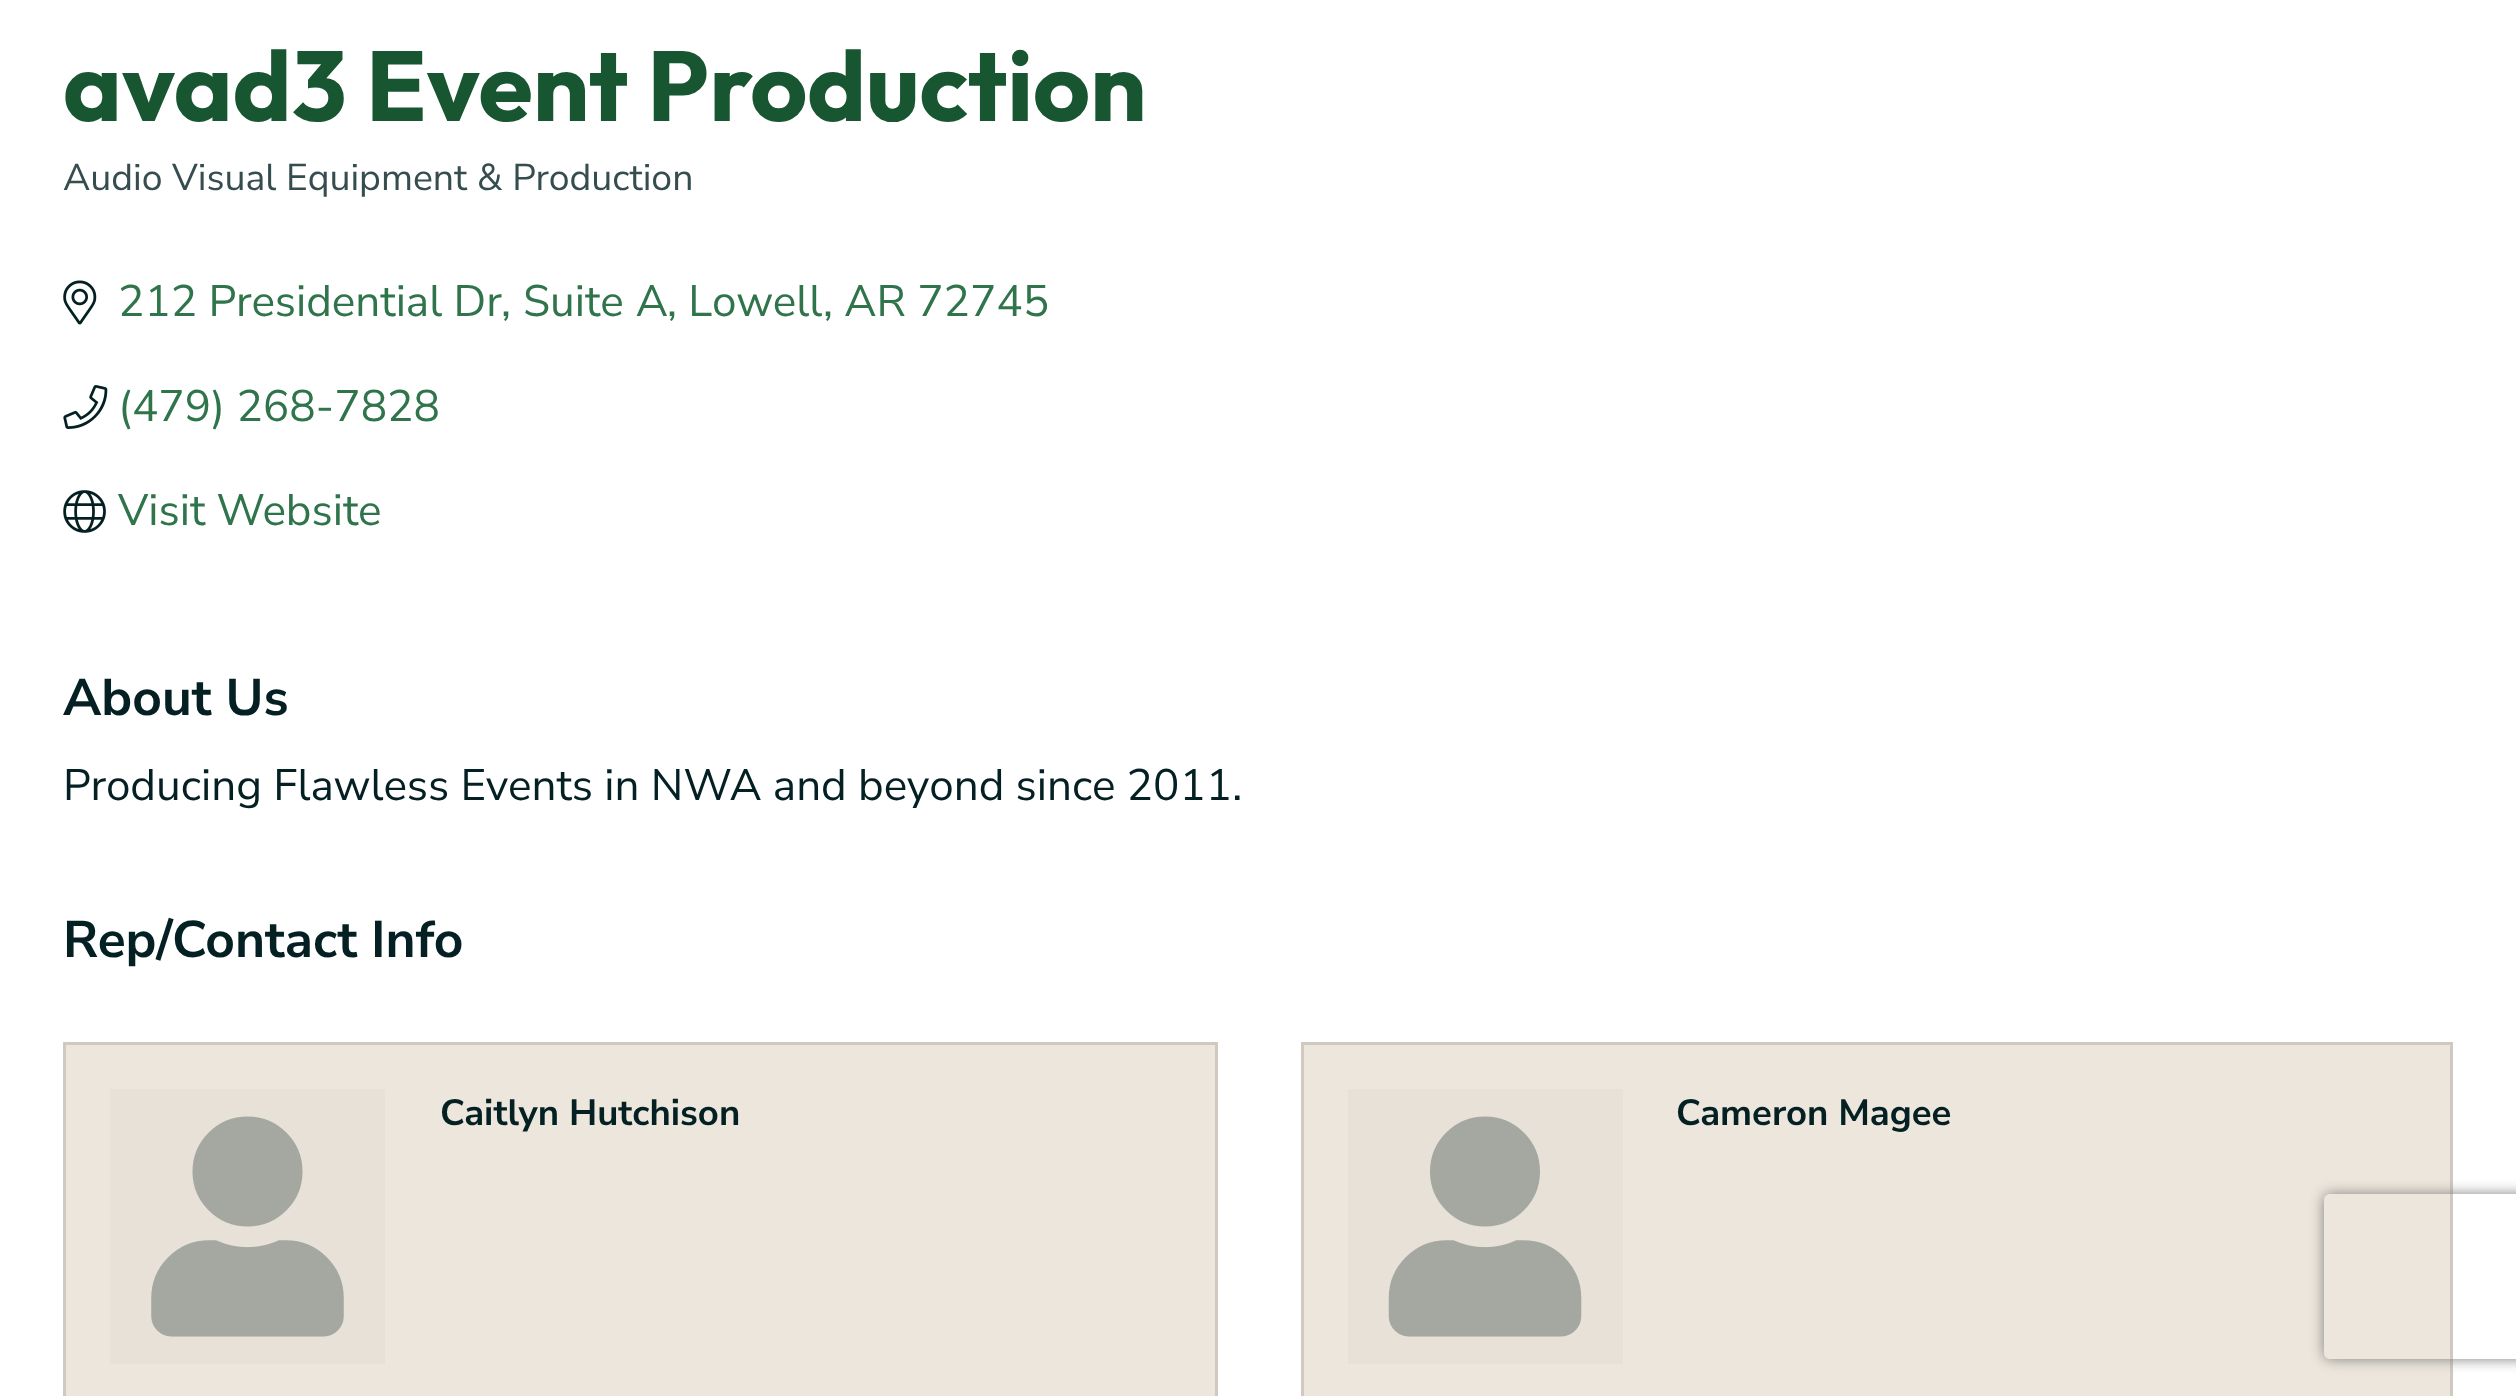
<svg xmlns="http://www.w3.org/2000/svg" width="2516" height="1396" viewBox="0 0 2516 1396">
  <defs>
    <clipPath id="clip1"><path d="M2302 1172H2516V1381H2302ZM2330 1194H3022C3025.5 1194 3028 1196.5 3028 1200V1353C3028 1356.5 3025.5 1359 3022 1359H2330C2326.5 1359 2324 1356.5 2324 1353V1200C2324 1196.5 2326.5 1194 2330 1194Z" clip-rule="evenodd"/></clipPath>
  </defs>
  <rect width="100%" height="100%" fill="#fff"/>
  <image x="63" y="280" width="34" height="45" href="img/1.png"/>
  <image x="63" y="385" width="45" height="44" href="img/2.png"/>
  <image x="63" y="490" width="43" height="43" href="img/3.png"/>
  <path d="M64.5 1043.5h1152v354H64.5z" fill="#ede6dc" stroke="#cfc9c1" stroke-width="3"/>
  <path d="M110 1089h275v275H110z" fill="#e8e1d8"/>
  <image x="151" y="1116" width="193" height="221" href="img/4.png"/>
  <path d="M1302.5 1043.5h1149v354H1302.5z" fill="#ede6dc" stroke="#cfc9c1" stroke-width="3"/>
  <path d="M1348 1089h275v275H1348z" fill="#e8e1d8"/>
  <image x="1388" y="1116" width="194" height="221" href="img/5.png"/>
  <g clip-path="url(#clip1)">
    <rect x="2324" y="1194" width="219" height="165" rx="6" fill="#808080" filter="blur(7px)"/>
  </g>
  <text x="63" y="121" font-family="Outfit" font-size="99" font-weight="bold" fill="#175630">avad3 Event Production</text>
  <text x="63" y="190" font-family="Nunito Sans" font-size="37.4" fill="#364d4f">Audio Visual Equipment &amp; Production</text>
  <g font-family="Nunito Sans" font-size="44" fill="#2f744b">
    <text x="118" y="316">212 Presidential Dr</text>
    <text x="501" y="316">,</text>
    <text x="523" y="316" word-spacing="1">Suite A</text>
    <text x="667" y="316">, Lowell</text>
    <text x="823" y="316">, AR 72745</text>
    <text x="118" y="421">(479) 268-7828</text>
    <text x="118" y="525">Visit Website</text>
  </g>
  <text x="63" y="715" font-family="Nunito Sans" font-size="51.5" font-weight="bold" fill="#042023">About Us</text>
  <text x="63" y="800" font-family="Nunito Sans" font-size="44" fill="#042023">Producing Flawless Events in NWA and beyond since 2011.</text>
  <text x="63" y="957" font-family="Nunito Sans" font-size="51.5" font-weight="bold" fill="#042023">Rep/Contact Info</text>
  <g font-family="Nunito Sans" font-size="36.5" font-weight="bold" fill="#042023">
    <text x="440" y="1125">Caitlyn Hutchison</text>
    <text x="1676" y="1125">Cameron Magee</text>
  </g>
</svg>
